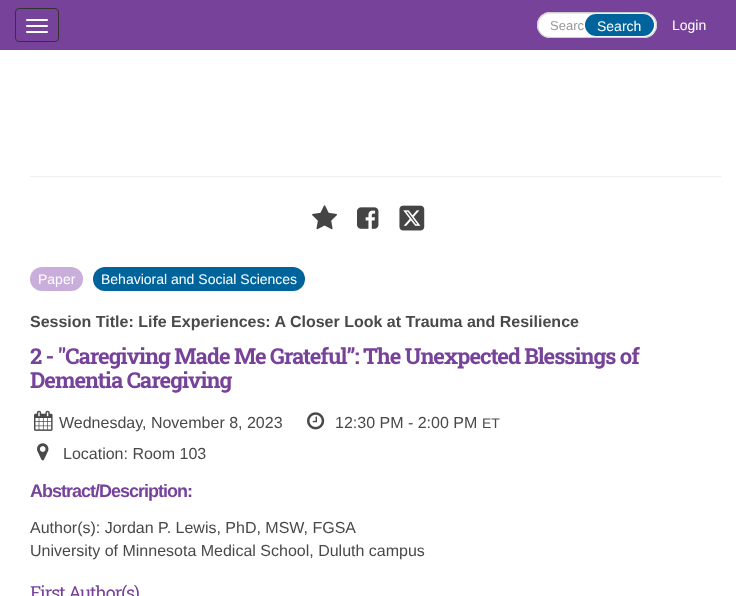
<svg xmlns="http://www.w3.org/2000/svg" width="736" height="596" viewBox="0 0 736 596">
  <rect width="100%" height="100%" fill="#fff"/>
  <path d="M0 0h736v50H0z" fill="#77439a"/>
  <rect x="15.5" y="8.5" width="43" height="33" rx="3.5" fill="none" stroke="#333"/>
  <rect x="26" y="19" width="22" height="2" rx="1" fill="#fff"/>
  <rect x="26" y="25" width="22" height="2" rx="1" fill="#fff"/>
  <rect x="26" y="31" width="22" height="2" rx="1" fill="#fff"/>
  <rect x="537" y="12" width="120" height="26" rx="13" fill="#fff"/>
  <path d="M550 14H615C622 14 643 13 649 15C654 17 657 23 655 29L656 25C656 18 651 13 644 13H550C543 13 538 18 538 25L539 30C537 23 541 14 550 14Z" fill="#ececec"/>
  <rect x="537.5" y="12.5" width="119" height="25" rx="12.5" fill="none" stroke="#ccc"/>
  <rect x="585" y="14" width="69" height="22" rx="11" fill="#00649c"/>
  <path d="M30 176h691v1H30z" fill="#eee"/>
  <image x="312" y="205" width="25" height="25" href="img/1.png"/>
  <image x="357" y="207" width="22" height="22" href="img/2.png"/>
  <image x="399" y="205" width="26" height="26" href="img/3.png"/>
  <rect x="30" y="267" width="53" height="24" rx="12" fill="#c9aedc"/>
  <rect x="93" y="267" width="212" height="24" rx="12" fill="#00649c"/>
  <image x="34" y="410" width="19" height="21" href="img/4.png"/>
  <image x="307" y="412" width="18" height="18" href="img/5.png"/>
  <image x="37" y="443" width="12" height="18" href="img/6.png"/>
  <text x="550" y="30" font-family="Liberation Sans" font-size="13" fill="#999">Searc</text>
  <g font-family="Liberation Sans" font-size="14" fill="#fff">
    <text x="597" y="31">Search</text>
    <text x="672" y="30">Login</text>
    <text x="38" y="284">Paper</text>
    <text x="101" y="284">Behavioral and Social Sciences</text>
  </g>
  <text x="30" y="327" font-family="Liberation Sans" font-size="16" font-weight="bold" fill="#494949">Session Title: Life Experiences: A Closer Look at Trauma and Resilience</text>
  <g font-family="Roboto Slab" font-size="22" font-weight="bold" letter-spacing="-1" fill="#77439a">
    <text x="30" y="364">2 - "Caregiving Made Me Grateful”: The Unexpected Blessings of</text>
    <text x="30" y="388">Dementia Caregiving</text>
  </g>
  <g font-family="Liberation Sans" font-size="16" fill="#494949">
    <text x="59" y="428">Wednesday, November 8, 2023</text>
    <text x="335" y="428">12:30 PM - 2:00 PM</text>
  </g>
  <text x="482" y="428" font-family="Liberation Sans" font-size="14" fill="#494949">ET</text>
  <text x="63" y="459" font-family="Liberation Sans" font-size="16" fill="#494949">Location: Room 103</text>
  <text x="30" y="497" font-family="Liberation Sans" font-size="18" font-weight="bold" letter-spacing="-1" fill="#77439a">Abstract/Description:</text>
  <g font-family="Liberation Sans" font-size="16" fill="#494949">
    <text x="30" y="533">Author(s): Jordan P. Lewis, PhD, MSW, FGSA</text>
    <text x="30" y="556">University of Minnesota Medical School, Duluth campus</text>
  </g>
  <text x="30" y="599" font-family="Roboto Slab" font-size="18" letter-spacing="-1" fill="#77439a">First Author(s)</text>
</svg>
